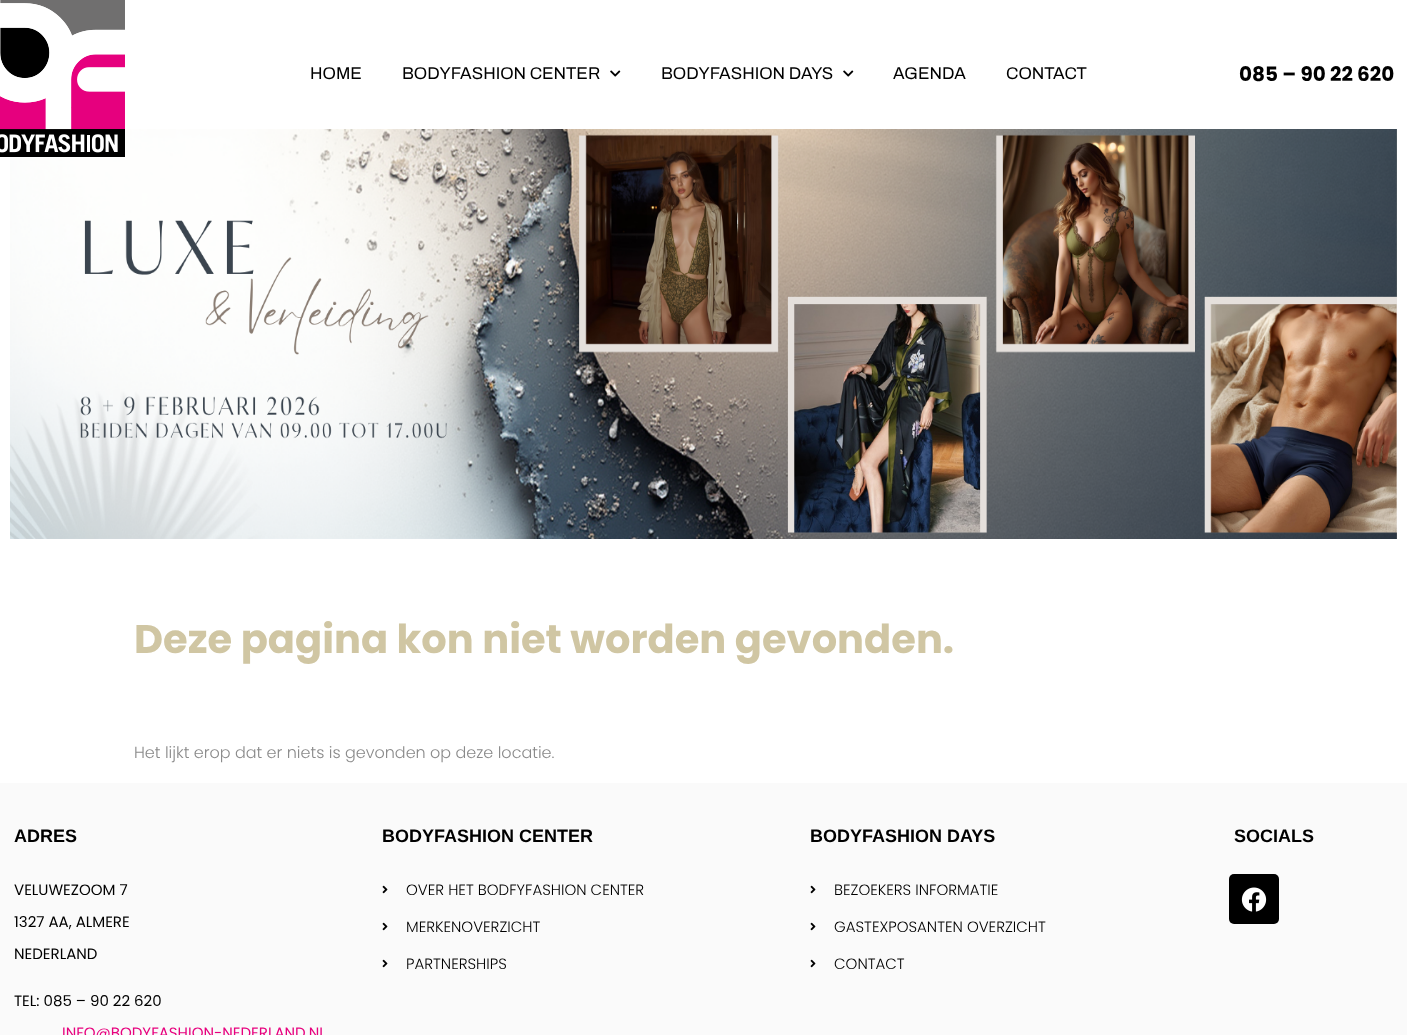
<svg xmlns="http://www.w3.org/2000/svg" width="1407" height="1035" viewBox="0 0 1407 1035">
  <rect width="100%" height="100%" fill="#fff"/>
  <image x="10" y="129" width="1387" height="410" href="img/3.png"/>
  <image x="0" y="0" width="125" height="157" href="img/1.png"/>
  <image x="610" y="70" width="11" height="7" href="img/2.png"/>
  <image x="843" y="70" width="11" height="7" href="img/2.png"/>
  <path d="M0 783h1407v252H0z" fill="#fafafa"/>
  <image x="382" y="885" width="6" height="9" href="img/4.png"/>
  <image x="382" y="922" width="6" height="9" href="img/4.png"/>
  <image x="382" y="959" width="6" height="9" href="img/4.png"/>
  <image x="810" y="885" width="6" height="9" href="img/4.png"/>
  <image x="810" y="922" width="6" height="9" href="img/4.png"/>
  <image x="810" y="959" width="6" height="9" href="img/4.png"/>
  <rect x="1229" y="874" width="50" height="50" rx="5" fill="#000"/>
  <image x="1241" y="887" width="26" height="25" href="img/5.png"/>
  <g font-family="Archivo" font-size="17" fill="#000">
    <text x="310" y="79">HOME</text>
    <text x="402" y="79">BODYFASHION CENTER</text>
    <text x="661" y="79">BODYFASHION DAYS</text>
    <text x="893" y="79">AGENDA</text>
    <text x="1006" y="79">CONTACT</text>
  </g>
  <text x="1239" y="81" font-family="Poppins" font-size="20" font-weight="bold" fill="#000">085 – 90 22 620</text>
  <text x="134" y="653" font-family="Poppins" font-size="40" font-weight="bold" fill="#d0c6a3">Deze pagina kon niet worden gevonden.</text>
  <text x="134" y="758" font-family="Poppins" font-size="16" font-weight="300" fill="#8a8a8a">Het lijkt erop dat er niets is gevonden op deze locatie.</text>
  <text x="14" y="842" font-family="Liberation Sans" font-size="18" font-weight="bold" fill="#000">ADRES</text>
  <g font-family="Poppins" font-size="15" fill="#000">
    <text x="14" y="895">VELUWEZOOM 7</text>
    <text x="14" y="927">1327 AA, ALMERE</text>
    <text x="14" y="959">NEDERLAND</text>
    <text x="14" y="1006">TEL: 085 – 90 22 620</text>
  </g>
  <text x="62" y="1038" font-family="Poppins" font-size="15" fill="#e7017e">INFO@BODYFASHION-NEDERLAND.NL</text>
  <text x="382" y="842" font-family="Liberation Sans" font-size="18" font-weight="bold" fill="#000">BODYFASHION CENTER</text>
  <g font-family="Poppins" font-size="15" font-weight="300" fill="#000">
    <text x="406" y="895">OVER HET BODFYFASHION CENTER</text>
    <text x="406" y="932">MERKENOVERZICHT</text>
    <text x="406" y="969">PARTNERSHIPS</text>
  </g>
  <text x="810" y="842" font-family="Liberation Sans" font-size="18" font-weight="bold" fill="#000">BODYFASHION DAYS</text>
  <g font-family="Poppins" font-size="15" font-weight="300" fill="#000">
    <text x="834" y="895">BEZOEKERS INFORMATIE</text>
    <text x="834" y="932">GASTEXPOSANTEN OVERZICHT</text>
    <text x="834" y="969">CONTACT</text>
  </g>
  <text x="1234" y="842" font-family="Liberation Sans" font-size="18" font-weight="bold" fill="#000">SOCIALS</text>
</svg>
